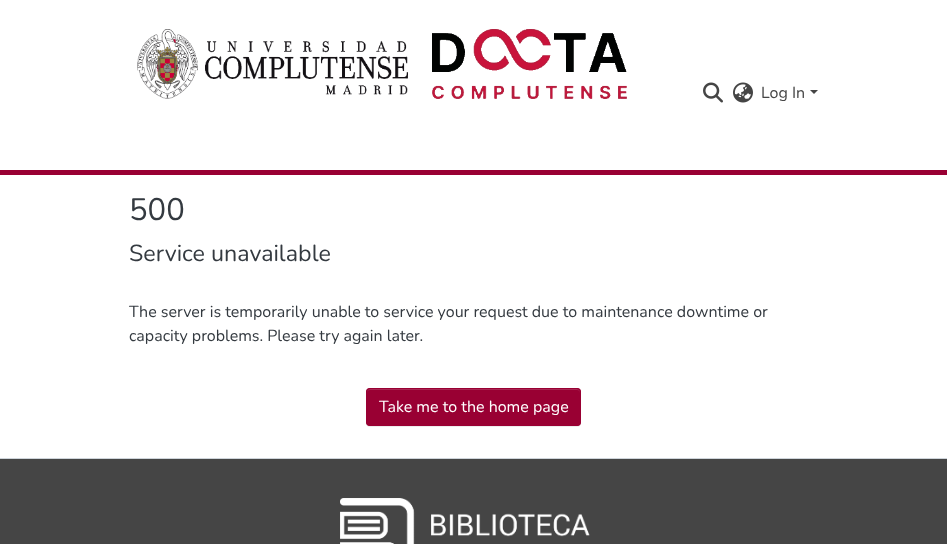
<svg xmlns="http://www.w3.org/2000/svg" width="947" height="544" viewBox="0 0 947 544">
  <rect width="100%" height="100%" fill="#fff"/>
  <path d="M0 170h947v5H0z" fill="#903"/>
  <image x="137" y="29" width="271" height="70" href="img/1.png"/>
  <image x="432" y="29" width="195" height="70" href="img/2.png"/>
  <image x="703" y="82" width="20" height="21" href="img/3.png"/>
  <image x="733" y="82" width="20" height="21" href="img/4.png"/>
  <path d="M810 90H818L814 94Z" fill="#454545"/>
  <rect x="366" y="389" width="215" height="38" rx="4" fill="#00000012" filter="blur(0.5px)"/>
  <rect x="366" y="388" width="215" height="38" rx="4" fill="#903"/>
  <path d="M370 390H577C579 390 580 391 580 393V392C580 390 579 389 577 389H370C368 389 367 390 367 392V393C367 391 368 390 370 390Z" fill="#a82652"/>
  <rect x="366.5" y="388.5" width="214" height="37" rx="3.5" fill="none" stroke="#903"/>
  <path d="M0 459h947v85H0z" fill="#454545"/>
  <path d="M0 458h947v1H0z" fill="#ced4da"/>
  <image x="340" y="498" width="250" height="46" href="img/5.png"/>
  <text x="761" y="98" font-family="Nunito" font-size="16" fill="#454545">Log In</text>
  <text x="129" y="220" font-family="Nunito" font-size="31" fill="#343a40">500</text>
  <text x="129" y="261" font-family="Nunito" font-size="23.25" fill="#343a40">Service unavailable</text>
  <g font-family="Nunito" font-size="16" fill="#343a40">
    <text x="129" y="317">The server is temporarily unable to service your request due to maintenance downtime or</text>
    <text x="129" y="341">capacity problems. Please try again later.</text>
  </g>
  <text x="379" y="412" font-family="Nunito" font-size="16" fill="#fff">Take me to the home page</text>
</svg>
